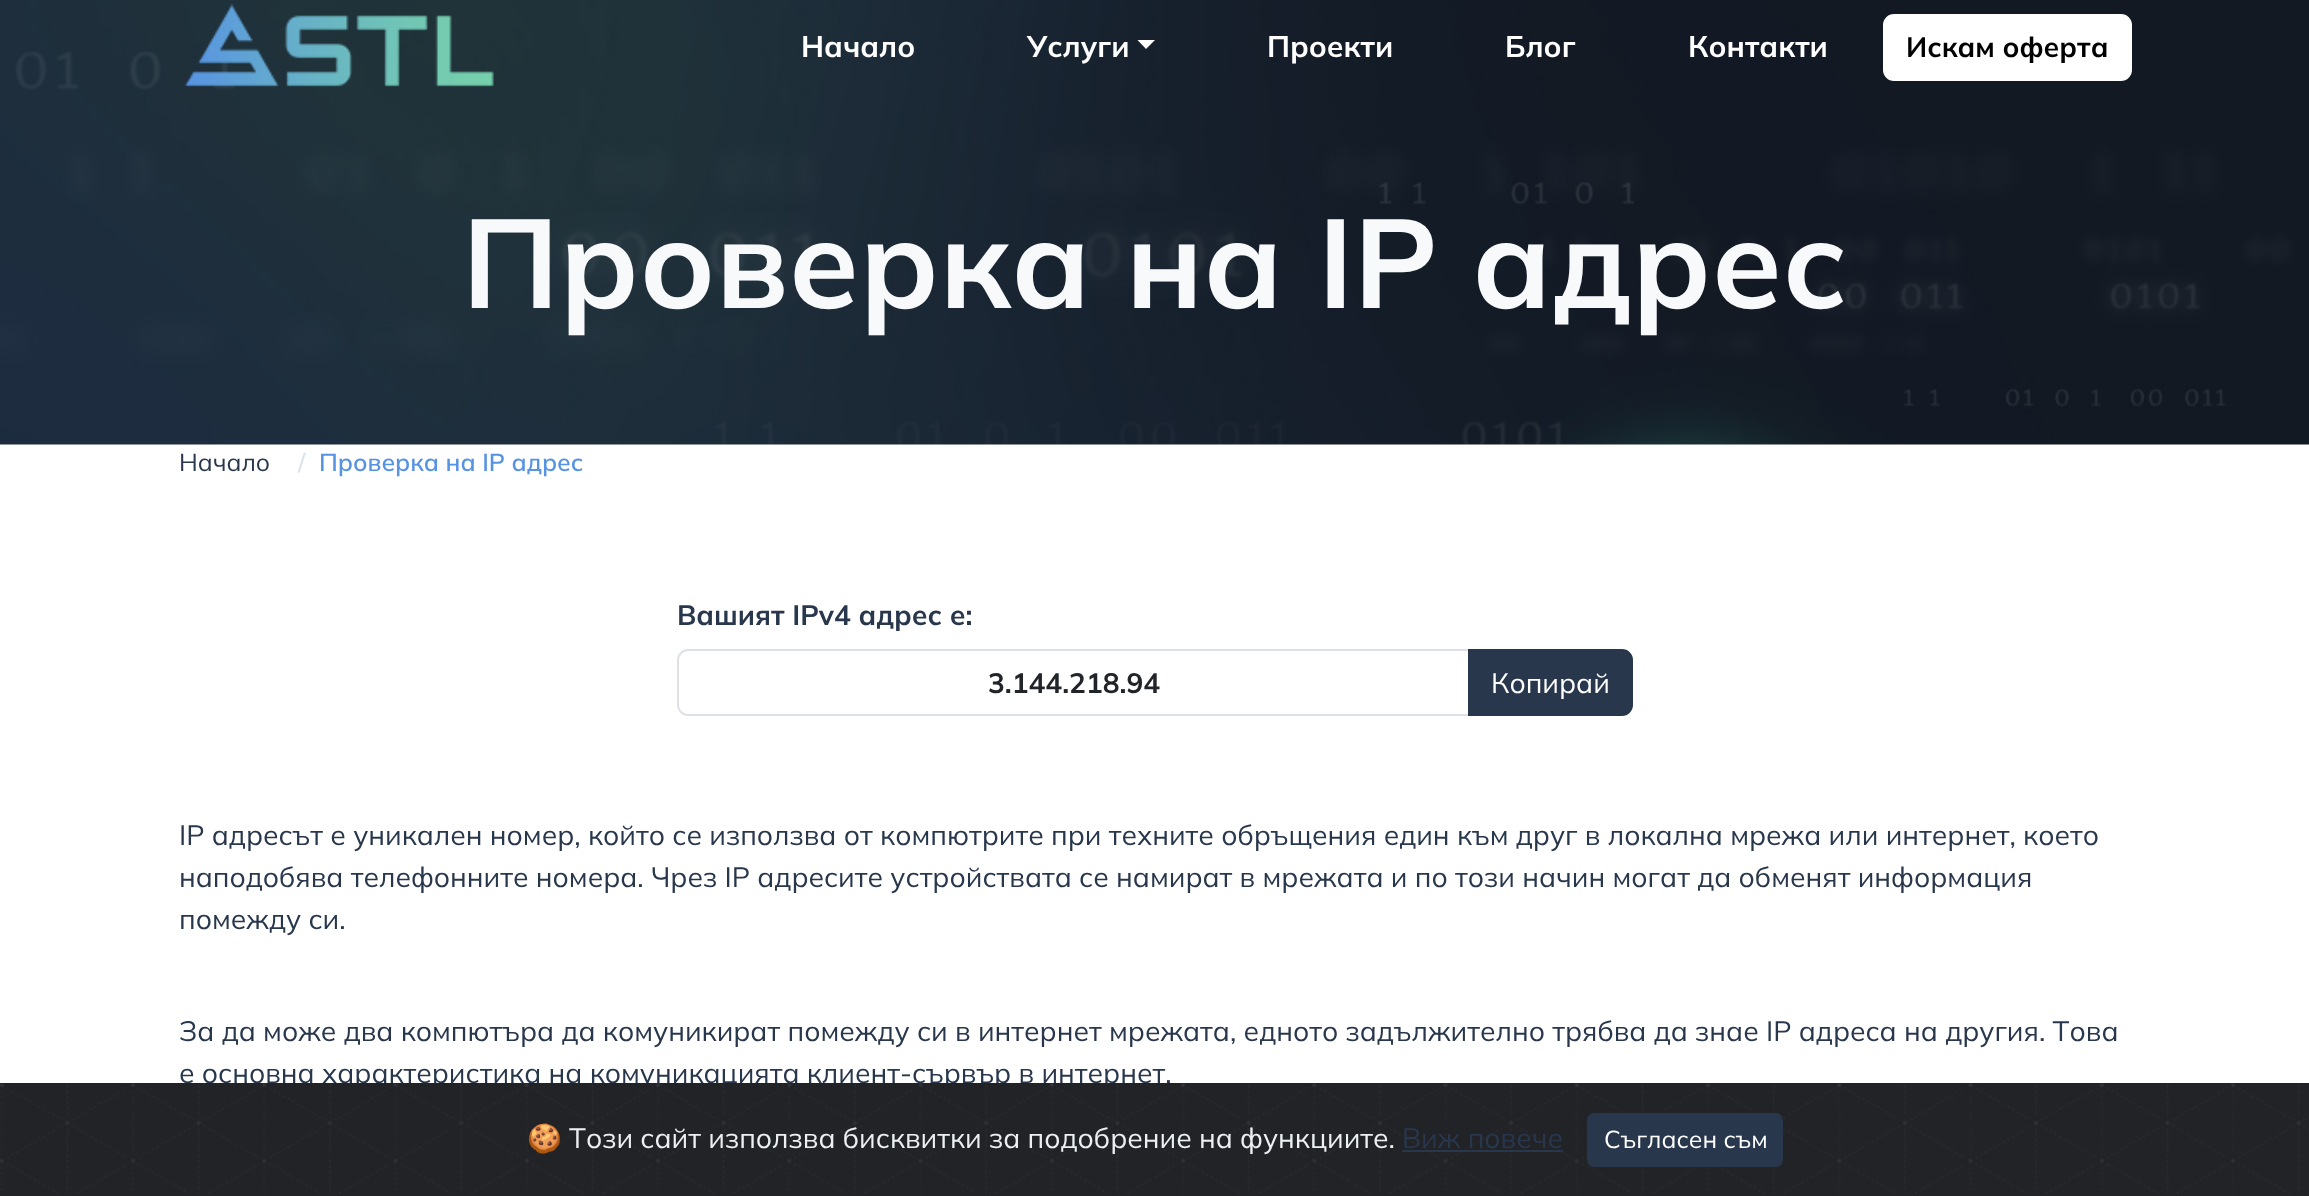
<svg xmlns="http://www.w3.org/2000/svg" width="2309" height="1196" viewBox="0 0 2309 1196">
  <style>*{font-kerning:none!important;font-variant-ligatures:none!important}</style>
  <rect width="100%" height="100%" fill="#fff"/>
  <image x="0" y="0" width="2309" height="445" href="img/1.png"/>
  <image x="185" y="3" width="309" height="84" href="img/2.png"/>
  <path d="M1137.5 40H1155L1146 49Z" fill="#fff"/>
  <rect x="1884" y="15" width="247" height="65" rx="10" fill="#fff" stroke="#fff" stroke-width="2"/>
  <path d="M688 650H1469V715H688C682.5 715 678 710.5 678 705V660C678 654.5 682.5 650 688 650Z" fill="none" stroke="#dee2e6" stroke-width="2"/>
  <path d="M1469 650H1622C1627.5 650 1632 654.5 1632 660V705C1632 710.5 1627.5 715 1622 715H1469Z" fill="#28374c" stroke="#28374c" stroke-width="2"/>
  <g font-family="Mulish" font-size="29.75" font-weight="bold" fill="#fff">
    <text x="801" y="57">Начало</text>
    <text x="1027" y="57">Услуги</text>
    <text x="1267" y="57">Проекти</text>
    <text x="1505" y="57">Блог</text>
    <text x="1688" y="57">Контакти</text>
  </g>
  <text x="1906" y="57" font-family="Mulish" font-size="28" font-weight="bold" fill="#000">Искам оферта</text>
  <text x="462" y="308" font-family="Mulish" font-size="126" font-weight="bold" fill="#f8f9fa">Проверка на IP адрес</text>
  <text x="179" y="471" font-family="Mulish" font-size="24.5" fill="#28374c">Начало</text>
  <text x="298" y="471" font-family="Mulish" font-size="24.5" font-weight="600" fill="#dae4ea">/</text>
  <text x="319" y="471" font-family="Mulish" font-size="24.5" font-weight="600" fill="#5793e3">Проверка на IP адрес</text>
  <text x="677" y="625" font-family="Mulish" font-size="28" font-weight="bold" fill="#28374c">Вашият IPv4 адрес е:</text>
  <text x="988" y="693" font-family="Mulish" font-size="28" font-weight="bold" fill="#212529">3.144.218.94</text>
  <text x="1491" y="693" font-family="Mulish" font-size="28" fill="#fff">Копирай</text>
  <g font-family="Mulish" font-size="28" fill="#28374c">
    <text x="179" y="845">IP адресът е уникален номер, който се използва от компютрите при техните обръщения един към друг в локална мрежа или интернет, което</text>
    <text x="179" y="887">наподобява телефонните номера. Чрез IP адресите устройствата се намират в мрежата и по този начин могат да обменят информация</text>
    <text x="179" y="929">помежду си.</text>
    <text x="179" y="1041">За да може два компютъра да комуникират помежду си в интернет мрежата, едното задължително трябва да знае IP адреса на другия. Това</text>
    <text x="179" y="1083">е основна характеристика на комуникацията клиент-сървър в интернет.</text>
  </g>
  <path d="M0 1083h2309v113H0z" fill="#212327"/>
  <image x="0" y="1083" width="2309" height="111" href="img/3.png"/>
  <text x="527" y="1148" font-family="Noto Color Emoji" font-size="28" fill="#ecf0f1">🍪</text>
  <text x="569" y="1148" font-family="Mulish" font-size="28" fill="#ecf0f1">Този сайт използва бисквитки за подобрение на функциите.</text>
  <text x="1402" y="1148" font-family="Mulish" font-size="28" fill="#28374c">Виж повече</text>
  <path d="M1402 1150h161v2H1402z" fill="#28374c"/>
  <rect x="1588" y="1114" width="194" height="52" rx="6" fill="#28374c" stroke="#28374c" stroke-width="2"/>
  <text x="1604" y="1148" font-family="Mulish" font-size="24.5" fill="#fff">Съгласен съм</text>
</svg>
